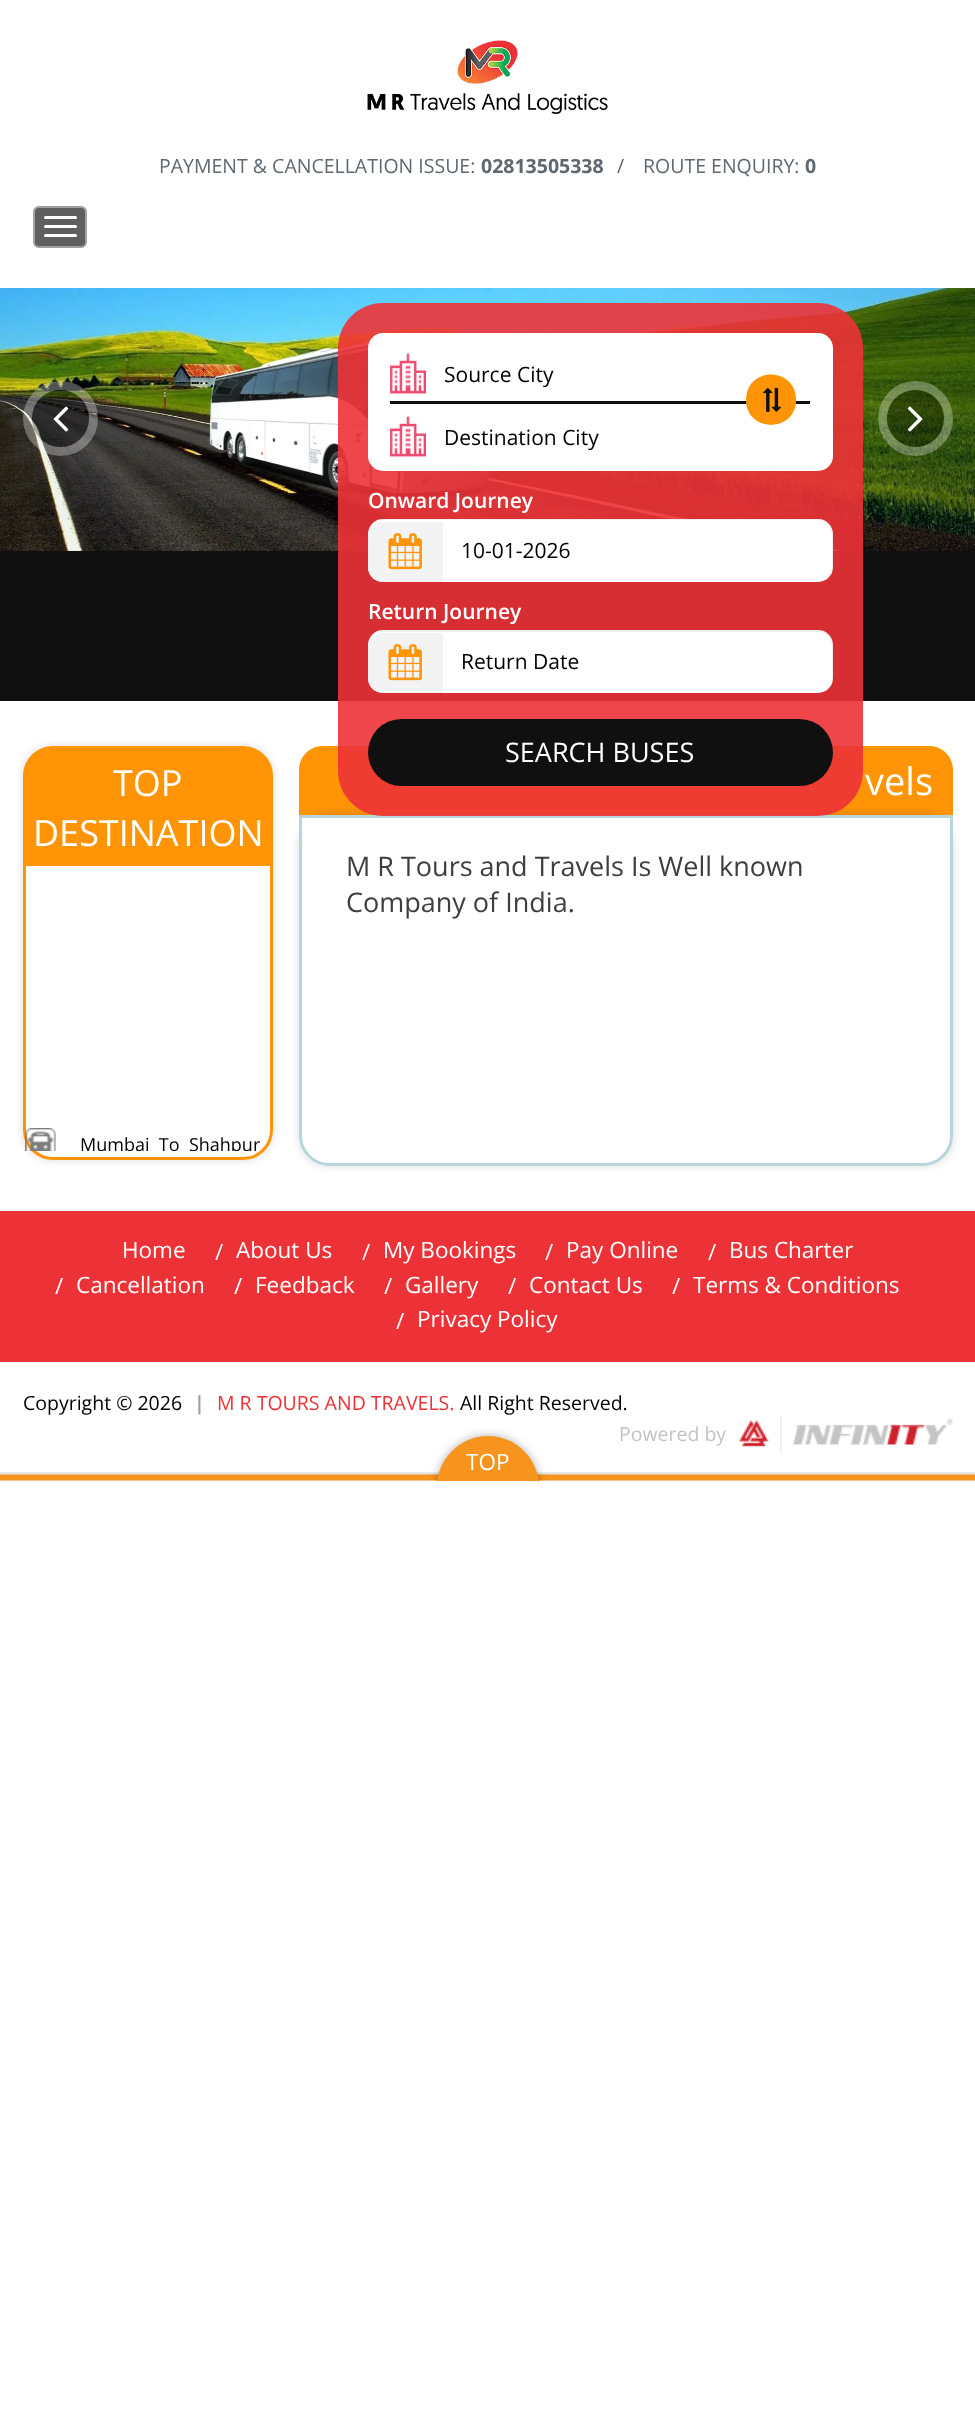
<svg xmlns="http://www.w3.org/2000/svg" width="975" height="2427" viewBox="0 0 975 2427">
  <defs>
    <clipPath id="clip1"><path d="M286 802H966V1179H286ZM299 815H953V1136C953 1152.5 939.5 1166 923 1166H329C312.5 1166 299 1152.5 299 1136Z" clip-rule="evenodd"/></clipPath>
    <clipPath id="clip2"><path d="M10 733H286V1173H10ZM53 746H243C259.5 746 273 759.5 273 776V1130C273 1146.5 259.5 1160 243 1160H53C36.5 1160 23 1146.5 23 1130V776C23 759.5 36.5 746 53 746Z" clip-rule="evenodd"/></clipPath>
    <clipPath id="clip3"><path d="M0 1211h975v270H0z"/></clipPath>
    <clipPath id="clip4"><path d="M26 866h244v285H26z"/></clipPath>
  </defs>
  <rect width="100%" height="100%" fill="#fff"/>
  <image x="367" y="40" width="241" height="74" href="img/1.png"/>
  <rect x="34" y="207" width="52" height="40" rx="5" fill="#5f5f5f" stroke="#9f9f9f" stroke-width="2"/>
  <rect x="44" y="216" width="33" height="3" rx="1.5" fill="#fff"/>
  <rect x="44" y="225" width="33" height="3" rx="1.5" fill="#fff"/>
  <rect x="44" y="234" width="33" height="3" rx="1.5" fill="#fff"/>
  <path d="M0 550h975v151H0z" fill="#101010"/>
  <image x="0" y="288" width="975" height="263" href="img/2.png"/>
  <circle cx="60.5" cy="418.5" r="33" fill="none" stroke="#ffffff4d" stroke-width="9"/>
  <circle cx="60.5" cy="418.5" r="28.5" fill="#0000004d"/>
  <image x="53" y="406" width="16" height="26" href="img/3.png"/>
  <circle cx="915.5" cy="418.5" r="33" fill="none" stroke="#ffffff4d" stroke-width="9"/>
  <circle cx="915.5" cy="418.5" r="28.5" fill="#0000004d"/>
  <image x="907" y="406" width="16" height="26" href="img/4.png"/>
  <path d="M323 746H929C942.5 746 953 756.5 953 770V815H299V770C299 756.5 309.5 746 323 746Z" fill="#ff9407"/>
  <g clip-path="url(#clip1)">
    <rect x="299" y="815" width="654" height="351" rx="30" fill="#00000026" filter="blur(4px)"/>
  </g>
  <path d="M300.5 816.5H951.5V1136C951.5 1151.5 938.5 1164.5 923 1164.5H329C313.5 1164.5 300.5 1151.5 300.5 1136Z" fill="none" stroke="#b8d5db" stroke-width="3"/>
  <rect x="338" y="303" width="525" height="513" rx="45" fill="#ed3237e6"/>
  <rect x="368" y="333" width="465" height="138" rx="15" fill="#fff"/>
  <path d="M390 401h420v3H390z" fill="#101010"/>
  <image x="390" y="352" width="36" height="43" href="img/5.png"/>
  <path d="M796 400C796 433 746 433 746 400C746 366 796 366 796 400Z" fill="#ff9407"/>
  <image x="763" y="387" width="19" height="25" href="img/6.png"/>
  <image x="390" y="415" width="36" height="43" href="img/5.png"/>
  <rect x="368" y="519" width="465" height="63" rx="15" fill="#fff"/>
  <path d="M382 520H818C826 520 832 527 832 536V568C832 571 832 573 831 575C832 573 833 570 833 567V534C833 526 826 519 818 519H383C375 519 368 526 368 534V536C368 527 374 520 382 520Z" fill="#00000012"/>
  <path d="M383 522H443V582H383C374.5 582 368 575.5 368 567V537C368 528.5 374.5 522 383 522Z" fill="#f3f3f3"/>
  <image x="388" y="533" width="34" height="37" href="img/7.png"/>
  <rect x="368" y="630" width="465" height="63" rx="15" fill="#fff"/>
  <path d="M382 632H818C826 632 832 638 832 646V680C832 682 832 684 831 686C832 683 833 681 833 678V645C833 637 826 630 818 630H383C375 630 368 637 368 645V646C368 638 374 632 382 632Z" fill="#00000012"/>
  <path d="M383 633H443V693H383C374.5 693 368 686.5 368 678V648C368 639.5 374.5 633 383 633Z" fill="#f3f3f3"/>
  <image x="388" y="644" width="34" height="37" href="img/7.png"/>
  <rect x="368" y="719" width="465" height="67" rx="33.5" fill="#101010"/>
  <g clip-path="url(#clip2)">
    <rect x="23" y="746" width="250" height="414" rx="30" fill="#00000026" filter="blur(4px)"/>
  </g>
  <rect x="24.5" y="747.5" width="247" height="411" rx="28.5" fill="none" stroke="#ff9407" stroke-width="3"/>
  <path d="M50 749H246C259.5 749 270 759.5 270 773V866H26V773C26 759.5 36.5 749 50 749Z" fill="#ff9407"/>
  <image x="25" y="1128" width="31" height="23" href="img/8.png"/>
  <image x="0" y="1472" width="975" height="9" href="img/9.png"/>
  <path d="M0 1211h975v151H0z" fill="#ed3237"/>
  <image x="739" y="1416" width="214" height="38" href="img/10.png"/>
  <g clip-path="url(#clip3)">
    <rect x="437" y="1436" width="102" height="102" rx="51" fill="#0000004d" filter="blur(5px)"/>
  </g>
  <path d="M488 1436C516 1436 539 1459 539 1487V1481H437V1487C437 1459 460 1436 488 1436Z" fill="#f7941d"/>
  <text x="159" y="173" font-family="Open Sans" font-size="19.5" fill="#5f686f">PAYMENT &amp; CANCELLATION ISSUE:</text>
  <text x="481" y="173" font-family="Open Sans" font-size="19.5" font-weight="bold" fill="#5f686f">02813505338</text>
  <g font-family="Open Sans" font-size="19.5" fill="#5f686f">
    <text x="617" y="173">/</text>
    <text x="643" y="173">ROUTE ENQUIRY:</text>
  </g>
  <text x="805" y="173" font-family="Open Sans" font-size="19.5" font-weight="bold" fill="#5f686f">0</text>
  <g font-family="Open Sans" font-size="21" fill="#000">
    <text x="444" y="382">Source City</text>
    <text x="444" y="445">Destination City</text>
  </g>
  <text x="368" y="508" font-family="Open Sans" font-size="21" font-weight="600" fill="#fff">Onward Journey</text>
  <text x="461" y="558" font-family="Open Sans" font-size="21" fill="#000">10-01-2026</text>
  <text x="368" y="619" font-family="Open Sans" font-size="21" font-weight="600" fill="#fff">Return Journey</text>
  <text x="461" y="669" font-family="Open Sans" font-size="21" fill="#000">Return Date</text>
  <text x="505" y="762" font-family="Open Sans" font-size="27" fill="#fff">SEARCH BUSES</text>
  <g font-family="Open Sans" font-size="36" fill="#fff">
    <text x="113" y="796">TOP</text>
    <text x="33" y="846">DESTINATION</text>
  </g>
  <g clip-path="url(#clip4)">
    <text x="80" y="1151" font-family="Open Sans" font-size="18" fill="#000" xml:space="preserve">Mumbai  To  Shahpur</text>
  </g>
  <text x="865" y="795" font-family="Open Sans" font-size="38" fill="#fff">vels</text>
  <g font-family="Open Sans" font-size="27" fill="#3e3e3e">
    <text x="346" y="876">M R Tours and Travels Is Well known</text>
    <text x="346" y="912">Company of India.</text>
  </g>
  <g font-family="Open Sans" font-size="22.5" fill="#fff">
    <text x="122" y="1258">Home</text>
    <text x="215" y="1260">/</text>
    <text x="236" y="1258">About Us</text>
    <text x="362" y="1260">/</text>
    <text x="383" y="1258">My Bookings</text>
    <text x="545" y="1260">/</text>
    <text x="566" y="1258">Pay Online</text>
    <text x="708" y="1260">/</text>
    <text x="729" y="1258">Bus Charter</text>
    <text x="55" y="1294">/</text>
    <text x="76" y="1293">Cancellation</text>
    <text x="234" y="1294">/</text>
    <text x="255" y="1293">Feedback</text>
    <text x="384" y="1294">/</text>
    <text x="405" y="1293">Gallery</text>
    <text x="508" y="1294">/</text>
    <text x="529" y="1293">Contact Us</text>
    <text x="672" y="1294">/</text>
    <text x="693" y="1293">Terms &amp; Conditions</text>
    <text x="396" y="1329">/</text>
    <text x="417" y="1327">Privacy Policy</text>
  </g>
  <text x="23" y="1410" font-family="Open Sans" font-size="19.5" fill="#000">Copyright © 2026</text>
  <text x="194" y="1410" font-family="Open Sans" font-size="19.5" font-weight="bold" fill="#9f9f9f">|</text>
  <text x="217" y="1410" font-family="Open Sans" font-size="19.5" fill="#ed3237">M R TOURS AND TRAVELS.</text>
  <text x="460" y="1410" font-family="Open Sans" font-size="19.5" fill="#000">All Right Reserved.</text>
  <text x="619" y="1441" font-family="Open Sans" font-size="19.5" fill="#c3c3c3">Powered by</text>
  <text x="466" y="1470" font-family="Open Sans" font-size="22.5" fill="#fff">TOP</text>
</svg>
